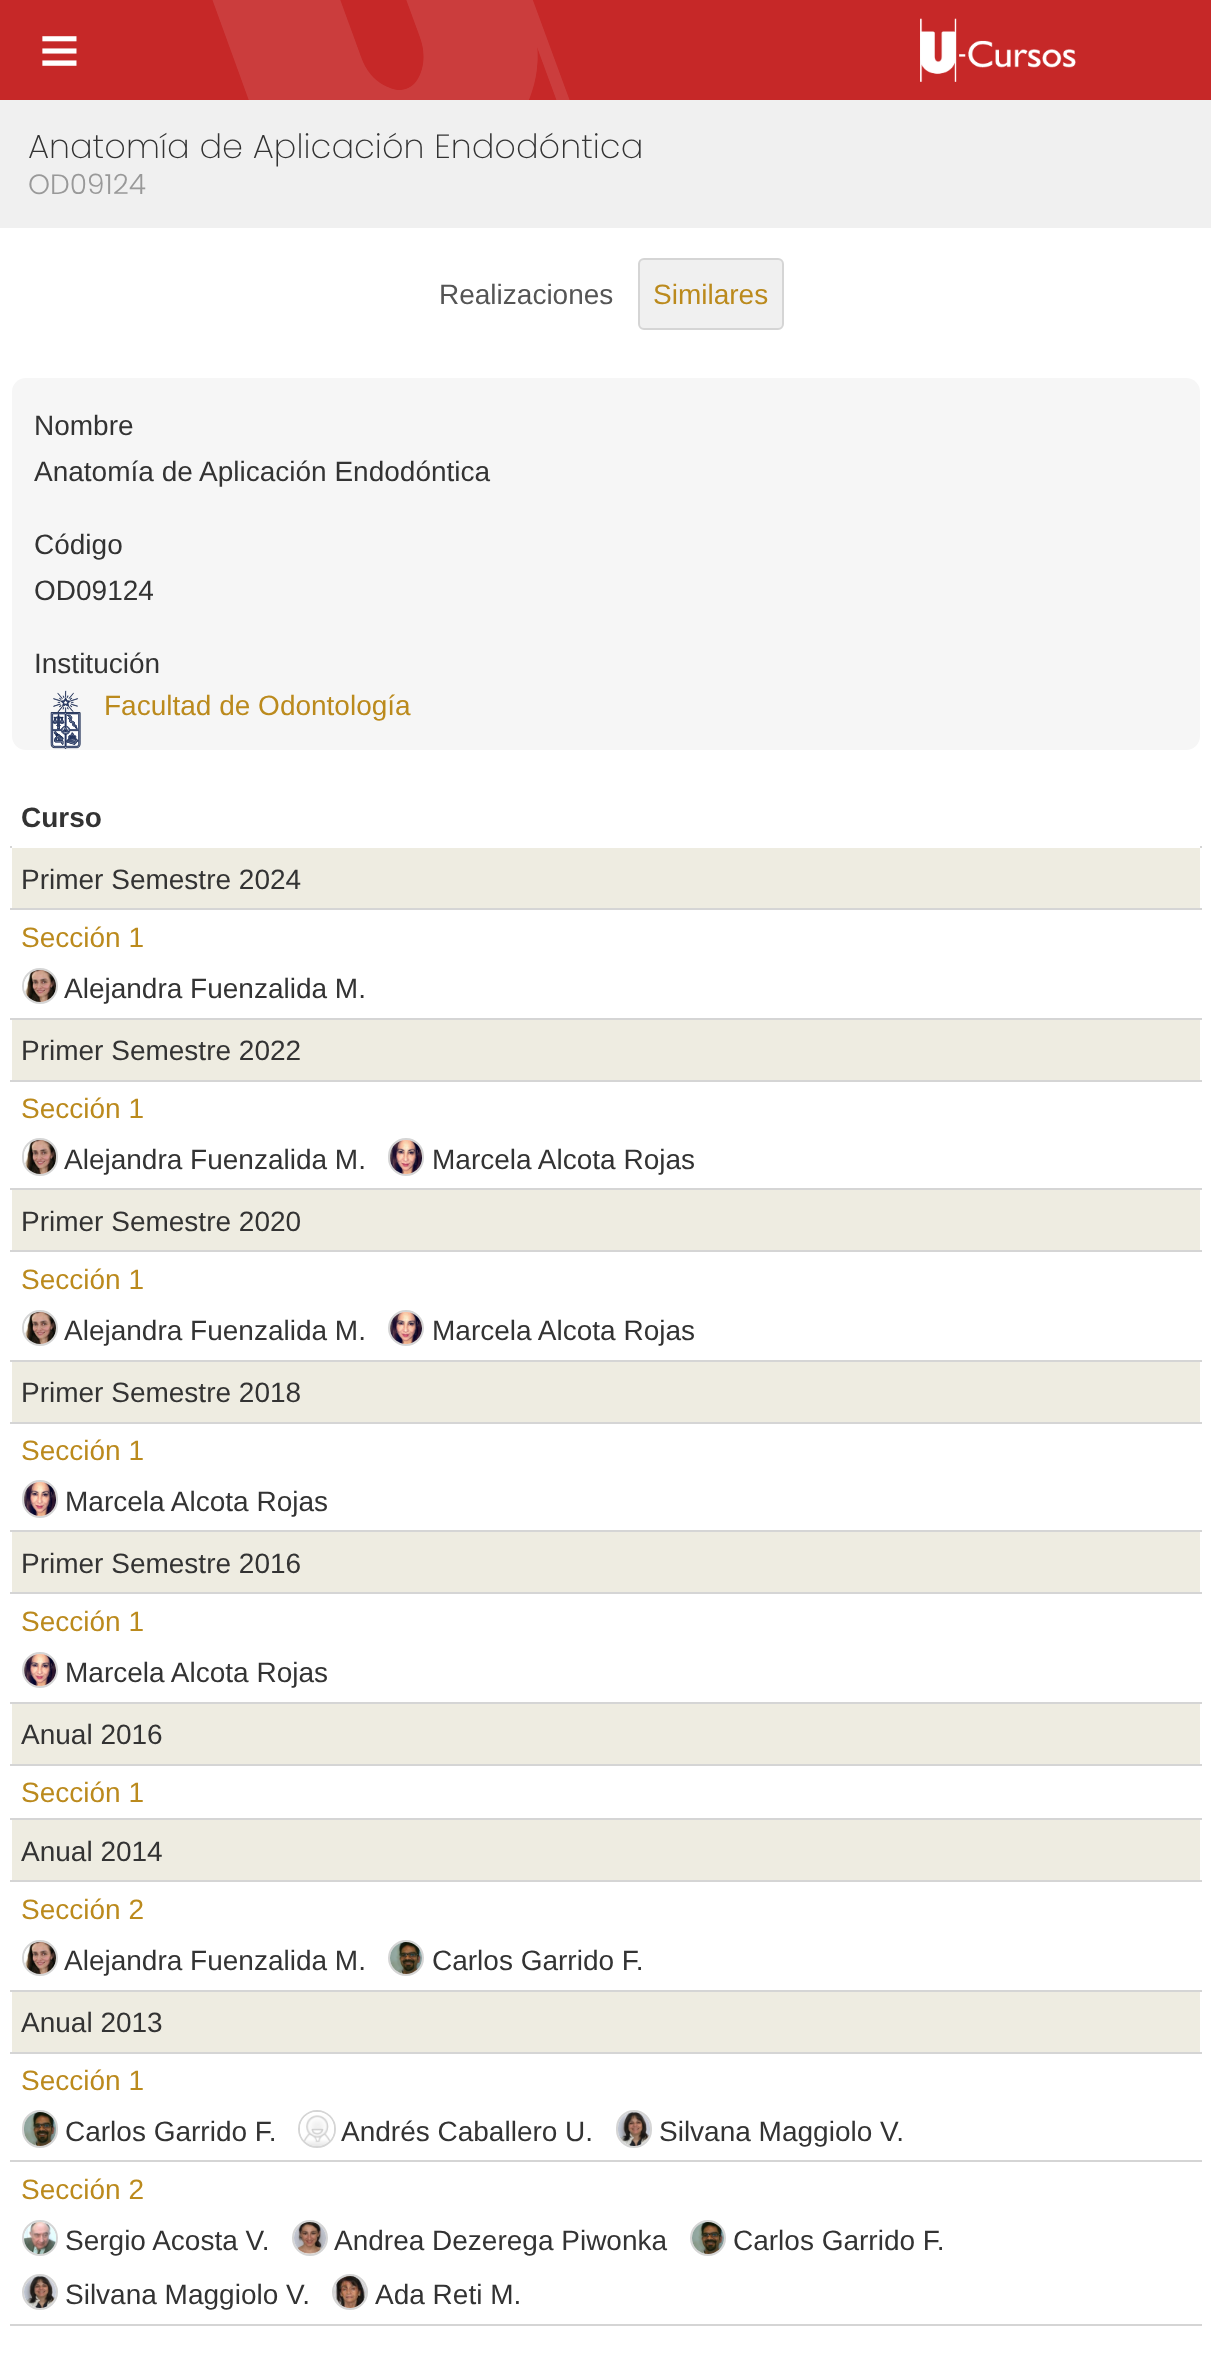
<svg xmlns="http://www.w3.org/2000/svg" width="1211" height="2357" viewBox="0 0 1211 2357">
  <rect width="100%" height="100%" fill="#fff"/>
  <path d="M0 0h1211v100H0z" fill="#c62828"/>
  <image x="212" y="0" width="358" height="100" href="img/1.png"/>
  <image x="920" y="18" width="156" height="64" href="img/2.png"/>
  <path d="M0 100h1211v128H0z" fill="#f0f0f0"/>
  <rect x="639" y="259" width="144" height="70" rx="5" fill="#f0f0f0" stroke="#d5d5d5" stroke-width="2"/>
  <rect x="12" y="378" width="1188" height="372" rx="14" fill="#f6f6f6"/>
  <image x="50" y="690" width="31" height="59" href="img/3.png"/>
  <path d="M10 846h1192v2H10z" fill="#d5d5d5"/>
  <path d="M12 846h1188v2H12z" fill="#fff"/>
  <path d="M12 848h1188v60H12z" fill="#eeece1"/>
  <path d="M10 908h1192v2H10z" fill="#d5d5d5"/>
  <path d="M10 1018h1192v2H10z" fill="#d5d5d5"/>
  <circle cx="40" cy="986" r="17" fill="none" stroke="#d5d5d5" stroke-width="2"/>
  <image x="24" y="970" width="32" height="32" href="img/4.png"/>
  <path d="M12 1020h1188v60H12z" fill="#eeece1"/>
  <path d="M10 1080h1192v2H10z" fill="#d5d5d5"/>
  <path d="M10 1188h1192v2H10z" fill="#d5d5d5"/>
  <rect x="23" y="1139" width="34" height="36" rx="17" fill="none" stroke="#d5d5d5" stroke-width="2"/>
  <image x="24" y="1140" width="32" height="34" href="img/5.png"/>
  <rect x="389" y="1139" width="34" height="36" rx="17" fill="none" stroke="#d5d5d5" stroke-width="2"/>
  <image x="390" y="1140" width="32" height="34" href="img/6.png"/>
  <path d="M12 1190h1188v60H12z" fill="#eeece1"/>
  <path d="M10 1250h1192v2H10z" fill="#d5d5d5"/>
  <path d="M10 1360h1192v2H10z" fill="#d5d5d5"/>
  <circle cx="40" cy="1328" r="17" fill="none" stroke="#d5d5d5" stroke-width="2"/>
  <image x="24" y="1312" width="32" height="32" href="img/4.png"/>
  <circle cx="406" cy="1328" r="17" fill="none" stroke="#d5d5d5" stroke-width="2"/>
  <image x="390" y="1312" width="32" height="32" href="img/7.png"/>
  <path d="M12 1362h1188v60H12z" fill="#eeece1"/>
  <path d="M10 1422h1192v2H10z" fill="#d5d5d5"/>
  <path d="M10 1530h1192v2H10z" fill="#d5d5d5"/>
  <rect x="23" y="1481" width="34" height="36" rx="17" fill="none" stroke="#d5d5d5" stroke-width="2"/>
  <image x="24" y="1482" width="32" height="34" href="img/8.png"/>
  <path d="M12 1532h1188v60H12z" fill="#eeece1"/>
  <path d="M10 1592h1192v2H10z" fill="#d5d5d5"/>
  <path d="M10 1702h1192v2H10z" fill="#d5d5d5"/>
  <circle cx="40" cy="1670" r="17" fill="none" stroke="#d5d5d5" stroke-width="2"/>
  <image x="24" y="1654" width="32" height="32" href="img/9.png"/>
  <path d="M12 1704h1188v60H12z" fill="#eeece1"/>
  <path d="M10 1764h1192v2H10z" fill="#d5d5d5"/>
  <path d="M10 1818h1192v2H10z" fill="#d5d5d5"/>
  <path d="M12 1820h1188v60H12z" fill="#eeece1"/>
  <path d="M10 1880h1192v2H10z" fill="#d5d5d5"/>
  <path d="M10 1990h1192v2H10z" fill="#d5d5d5"/>
  <circle cx="40" cy="1958" r="17" fill="none" stroke="#d5d5d5" stroke-width="2"/>
  <image x="24" y="1942" width="32" height="32" href="img/4.png"/>
  <circle cx="406" cy="1958" r="17" fill="none" stroke="#d5d5d5" stroke-width="2"/>
  <image x="390" y="1942" width="32" height="32" href="img/10.png"/>
  <path d="M12 1992h1188v60H12z" fill="#eeece1"/>
  <path d="M10 2052h1192v2H10z" fill="#d5d5d5"/>
  <path d="M10 2160h1192v2H10z" fill="#d5d5d5"/>
  <rect x="23" y="2111" width="34" height="36" rx="17" fill="none" stroke="#d5d5d5" stroke-width="2"/>
  <image x="24" y="2112" width="32" height="34" href="img/11.png"/>
  <circle cx="317" cy="2129" r="18" fill="none" stroke="#d5d5d5" stroke-width="2"/>
  <image x="300" y="2112" width="34" height="34" href="img/12.png"/>
  <rect x="617" y="2111" width="34" height="36" rx="17" fill="none" stroke="#d5d5d5" stroke-width="2"/>
  <image x="618" y="2112" width="32" height="34" href="img/13.png"/>
  <path d="M10 2324h1192v2H10z" fill="#d5d5d5"/>
  <circle cx="40" cy="2238" r="17" fill="none" stroke="#d5d5d5" stroke-width="2"/>
  <image x="24" y="2222" width="32" height="32" href="img/14.png"/>
  <circle cx="310" cy="2238" r="17" fill="none" stroke="#d5d5d5" stroke-width="2"/>
  <image x="294" y="2222" width="32" height="32" href="img/15.png"/>
  <circle cx="708" cy="2238" r="17" fill="none" stroke="#d5d5d5" stroke-width="2"/>
  <image x="692" y="2222" width="32" height="32" href="img/16.png"/>
  <circle cx="40" cy="2292" r="17" fill="none" stroke="#d5d5d5" stroke-width="2"/>
  <image x="24" y="2276" width="32" height="32" href="img/17.png"/>
  <circle cx="350" cy="2292" r="17" fill="none" stroke="#d5d5d5" stroke-width="2"/>
  <image x="334" y="2276" width="32" height="32" href="img/18.png"/>
  <text x="39" y="74" font-family="Liberation Sans" font-size="70" fill="#fff">≡</text>
  <text x="28" y="158" font-family="Poppins" font-size="33.6" font-weight="200" fill="#333">Anatomía de Aplicación Endodóntica</text>
  <text x="28" y="194" font-family="Poppins" font-size="28" font-weight="300" fill="#999">OD09124</text>
  <text x="439" y="304" font-family="Liberation Sans" font-size="28" fill="#555">Realizaciones</text>
  <text x="653" y="304" font-family="Liberation Sans" font-size="28" fill="#bb8a1d">Similares</text>
  <g font-family="Liberation Sans" font-size="28" fill="#333">
    <text x="34" y="435">Nombre</text>
    <text x="34" y="481">Anatomía de Aplicación Endodóntica</text>
    <text x="34" y="554">Código</text>
    <text x="34" y="600">OD09124</text>
    <text x="34" y="673">Institución</text>
  </g>
  <text x="104" y="715" font-family="Liberation Sans" font-size="28" fill="#bb8a1d">Facultad de Odontología</text>
  <text x="21" y="827" font-family="Liberation Sans" font-size="28" font-weight="bold" fill="#333">Curso</text>
  <text x="21" y="889" font-family="Liberation Sans" font-size="28" fill="#333">Primer Semestre 2024</text>
  <text x="21" y="947" font-family="Liberation Sans" font-size="28" fill="#bb8a1d">Sección 1</text>
  <g font-family="Liberation Sans" font-size="28" fill="#333">
    <text x="64" y="998">Alejandra Fuenzalida M.</text>
    <text x="21" y="1060">Primer Semestre 2022</text>
  </g>
  <text x="21" y="1118" font-family="Liberation Sans" font-size="28" fill="#bb8a1d">Sección 1</text>
  <g font-family="Liberation Sans" font-size="28" fill="#333">
    <text x="64" y="1169">Alejandra Fuenzalida M.</text>
    <text x="432" y="1169">Marcela Alcota Rojas</text>
    <text x="21" y="1231">Primer Semestre 2020</text>
  </g>
  <text x="21" y="1289" font-family="Liberation Sans" font-size="28" fill="#bb8a1d">Sección 1</text>
  <g font-family="Liberation Sans" font-size="28" fill="#333">
    <text x="64" y="1340">Alejandra Fuenzalida M.</text>
    <text x="432" y="1340">Marcela Alcota Rojas</text>
    <text x="21" y="1402">Primer Semestre 2018</text>
  </g>
  <text x="21" y="1460" font-family="Liberation Sans" font-size="28" fill="#bb8a1d">Sección 1</text>
  <g font-family="Liberation Sans" font-size="28" fill="#333">
    <text x="65" y="1511">Marcela Alcota Rojas</text>
    <text x="21" y="1573">Primer Semestre 2016</text>
  </g>
  <text x="21" y="1631" font-family="Liberation Sans" font-size="28" fill="#bb8a1d">Sección 1</text>
  <g font-family="Liberation Sans" font-size="28" fill="#333">
    <text x="65" y="1682">Marcela Alcota Rojas</text>
    <text x="21" y="1744">Anual 2016</text>
  </g>
  <text x="21" y="1802" font-family="Liberation Sans" font-size="28" fill="#bb8a1d">Sección 1</text>
  <text x="21" y="1861" font-family="Liberation Sans" font-size="28" fill="#333">Anual 2014</text>
  <text x="21" y="1919" font-family="Liberation Sans" font-size="28" fill="#bb8a1d">Sección 2</text>
  <g font-family="Liberation Sans" font-size="28" fill="#333">
    <text x="64" y="1970">Alejandra Fuenzalida M.</text>
    <text x="432" y="1970">Carlos Garrido F.</text>
    <text x="21" y="2032">Anual 2013</text>
  </g>
  <text x="21" y="2090" font-family="Liberation Sans" font-size="28" fill="#bb8a1d">Sección 1</text>
  <g font-family="Liberation Sans" font-size="28" fill="#333">
    <text x="65" y="2141">Carlos Garrido F.</text>
    <text x="341" y="2141">Andrés Caballero U.</text>
    <text x="659" y="2141">Silvana Maggiolo V.</text>
  </g>
  <text x="21" y="2199" font-family="Liberation Sans" font-size="28" fill="#bb8a1d">Sección 2</text>
  <g font-family="Liberation Sans" font-size="28" fill="#333">
    <text x="65" y="2250">Sergio Acosta V.</text>
    <text x="334" y="2250">Andrea Dezerega Piwonka</text>
    <text x="733" y="2250">Carlos Garrido F.</text>
    <text x="65" y="2304">Silvana Maggiolo V.</text>
    <text x="375" y="2304">Ada Reti M.</text>
  </g>
</svg>
